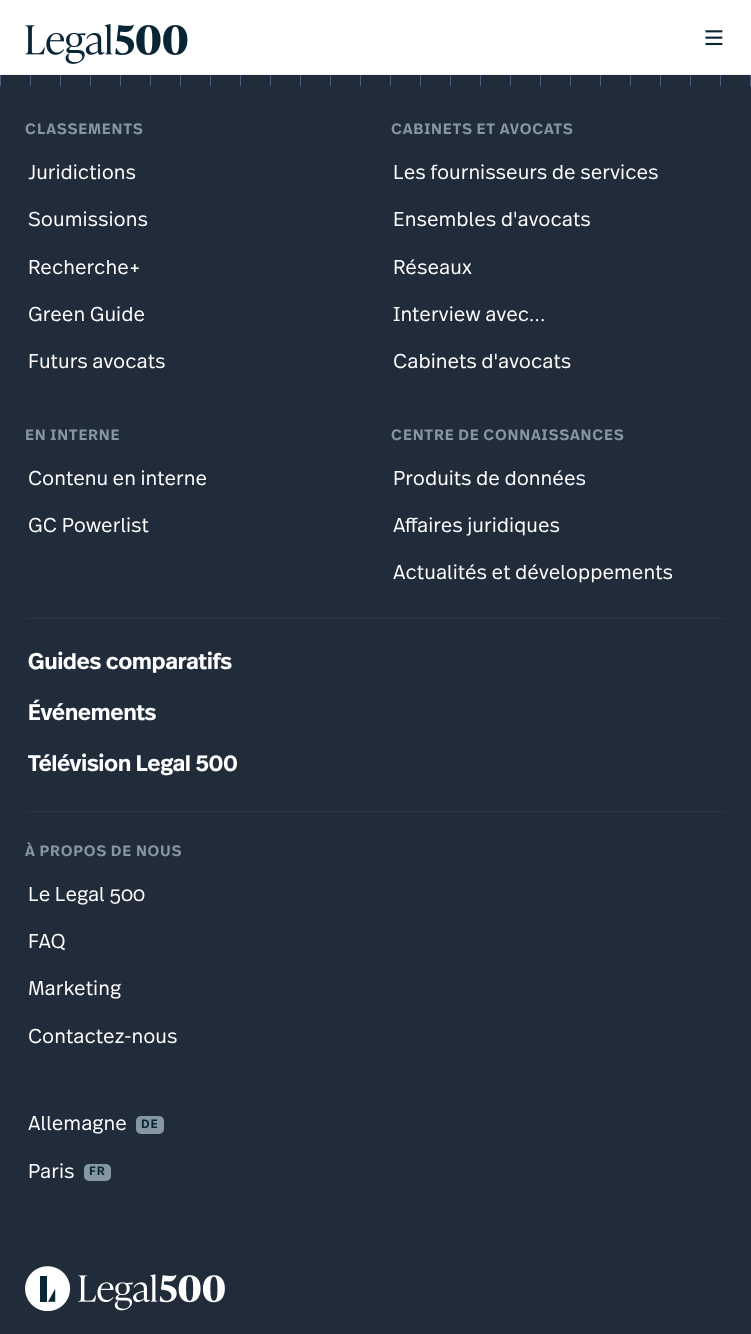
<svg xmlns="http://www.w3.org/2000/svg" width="751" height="1334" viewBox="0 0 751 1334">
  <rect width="100%" height="100%" fill="#212c3b"/>
  <path d="M0 0h751v74H0z" fill="#fff"/>
  <path d="M0 74h751v1H0z" fill="#edf1f5"/>
  <image x="25" y="24" width="163" height="40" href="img/1.png"/>
  <image x="705" y="30" width="18" height="16" href="img/2.png"/>
  <image x="0" y="75" width="751" height="11" href="img/3.png"/>
  <path d="M25 618h701v1H25z" fill="#273640"/>
  <path d="M25 811h701v1H25z" fill="#273640"/>
  <rect x="136" y="1116" width="28" height="18" rx="5" fill="#8697a1"/>
  <rect x="84" y="1164" width="27" height="17" rx="5" fill="#8697a1"/>
  <image x="25" y="1266" width="200" height="45" href="img/4.png"/>
  <text x="25" y="134" font-family="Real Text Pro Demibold" font-size="15" font-weight="600" letter-spacing="0.75" fill="#8697a1">CLASSEMENTS</text>
  <g font-family="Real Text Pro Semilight" font-size="20" font-weight="300" fill="#fff">
    <text x="28" y="179">Juridictions</text>
    <text x="28" y="226">Soumissions</text>
    <text x="28" y="274">Recherche+</text>
    <text x="28" y="321">Green Guide</text>
    <text x="28" y="368">Futurs avocats</text>
  </g>
  <text x="391" y="134" font-family="Real Text Pro Demibold" font-size="15" font-weight="600" letter-spacing="0.75" fill="#8697a1">CABINETS ET AVOCATS</text>
  <g font-family="Real Text Pro Semilight" font-size="20" font-weight="300" fill="#fff">
    <text x="393" y="179">Les fournisseurs de services</text>
    <text x="393" y="226">Ensembles d'avocats</text>
    <text x="393" y="274">Réseaux</text>
    <text x="393" y="321">Interview avec…</text>
    <text x="393" y="368">Cabinets d'avocats</text>
  </g>
  <text x="25" y="440" font-family="Real Text Pro Demibold" font-size="15" font-weight="600" letter-spacing="0.75" fill="#8697a1">EN INTERNE</text>
  <g font-family="Real Text Pro Semilight" font-size="20" font-weight="300" fill="#fff">
    <text x="28" y="485">Contenu en interne</text>
    <text x="28" y="532">GC Powerlist</text>
  </g>
  <text x="391" y="440" font-family="Real Text Pro Demibold" font-size="15" font-weight="600" letter-spacing="0.75" fill="#8697a1">CENTRE DE CONNAISSANCES</text>
  <g font-family="Real Text Pro Semilight" font-size="20" font-weight="300" fill="#fff">
    <text x="393" y="485">Produits de données</text>
    <text x="393" y="532">Affaires juridiques</text>
    <text x="393" y="579">Actualités et développements</text>
  </g>
  <g font-family="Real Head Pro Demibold" font-size="22.5" font-weight="600" fill="#fff">
    <text x="28" y="669">Guides comparatifs</text>
    <text x="28" y="720">Événements</text>
    <text x="28" y="771">Télévision Legal 500</text>
  </g>
  <text x="25" y="856" font-family="Real Text Pro Demibold" font-size="15" font-weight="600" letter-spacing="0.75" fill="#8697a1">À PROPOS DE NOUS</text>
  <g font-family="Real Text Pro Semilight" font-size="20" font-weight="300" fill="#fff">
    <text x="28" y="901">Le Legal 500</text>
    <text x="28" y="948">FAQ</text>
    <text x="28" y="995">Marketing</text>
    <text x="28" y="1043">Contactez-nous</text>
    <text x="28" y="1130">Allemagne</text>
  </g>
  <text x="141" y="1128" font-family="Real Text Pro Demibold" font-size="12" font-weight="600" letter-spacing="1" fill="#082536">DE</text>
  <text x="28" y="1178" font-family="Real Text Pro Semilight" font-size="20" font-weight="300" fill="#fff">Paris</text>
  <text x="89" y="1175" font-family="Real Text Pro Demibold" font-size="12" font-weight="600" letter-spacing="1" fill="#082536">FR</text>
</svg>
